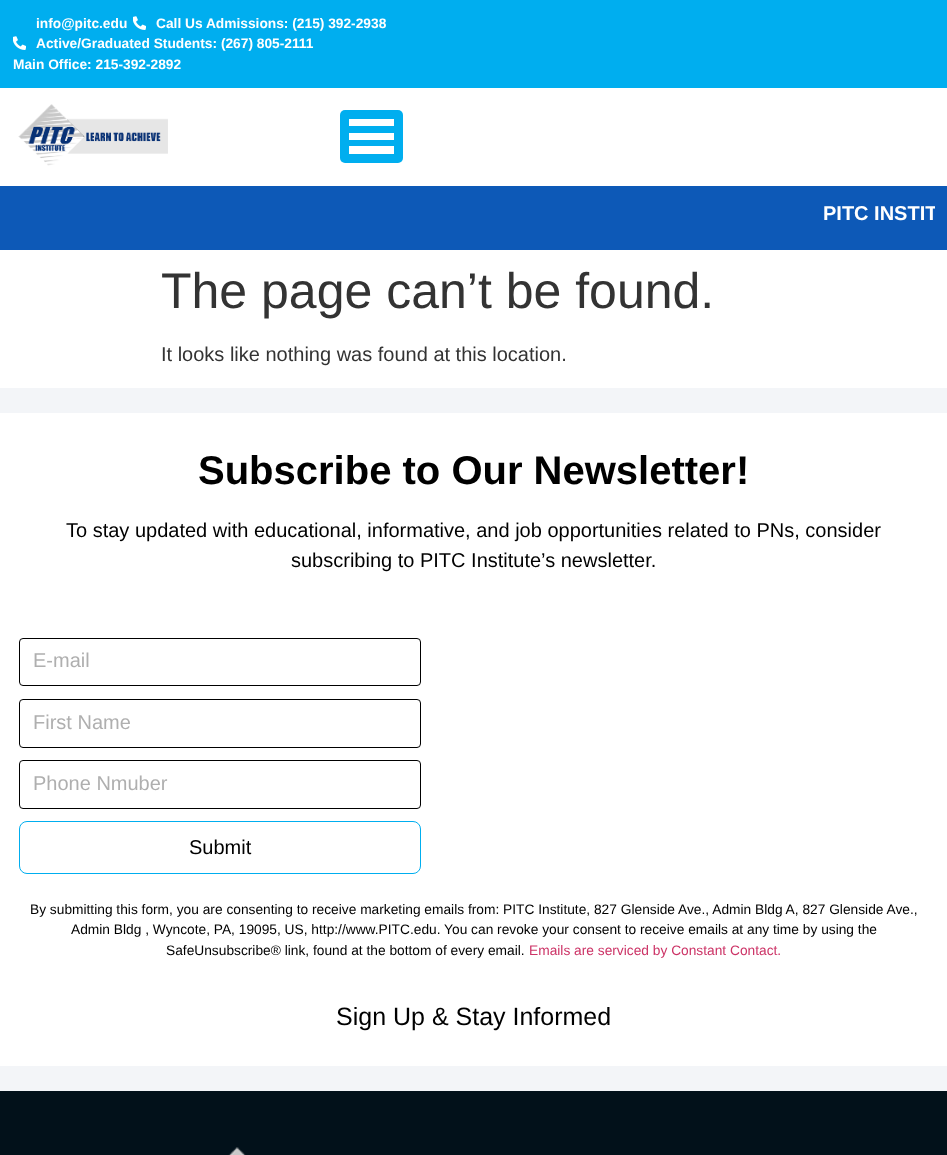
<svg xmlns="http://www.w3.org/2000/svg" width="947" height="1155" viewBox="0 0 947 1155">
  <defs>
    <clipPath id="clip1"><path d="M13 199h922v30H13z"/></clipPath>
  </defs>
  <rect width="100%" height="100%" fill="#fff"/>
  <path d="M0 0h947v88H0z" fill="#00aeef"/>
  <image x="133" y="16" width="13" height="14" href="img/1.png"/>
  <image x="13" y="36" width="13" height="14" href="img/1.png"/>
  <image x="18" y="104" width="150" height="62" href="img/2.png"/>
  <rect x="340" y="110" width="63" height="53" rx="5" fill="#00aeef"/>
  <path d="M349 119h45v7H349z" fill="#fff"/>
  <path d="M349 133h45v7H349z" fill="#fff"/>
  <path d="M349 146h45v8H349z" fill="#fff"/>
  <path d="M0 186h947v64H0z" fill="#0d59b7"/>
  <path d="M0 388h947v703H0z" fill="#f3f5f8"/>
  <path d="M0 413h947v653H0z" fill="#fff"/>
  <rect x="19.5" y="638.5" width="401" height="47" rx="3.5" fill="none" stroke="#000"/>
  <rect x="19.5" y="699.5" width="401" height="48" rx="3.5" fill="none" stroke="#000"/>
  <rect x="19.5" y="760.5" width="401" height="48" rx="3.5" fill="none" stroke="#000"/>
  <rect x="19.5" y="821.5" width="401" height="52" rx="7.5" fill="none" stroke="#00aeef"/>
  <path d="M0 1091h947v64H0z" fill="#02111a"/>
  <image x="228" y="1147" width="18" height="8" href="img/3.png"/>
  <g font-family="Liberation Sans" font-size="13.75" font-weight="bold" fill="#fff">
    <text x="36" y="28">info@pitc.edu</text>
    <text x="156" y="28">Call Us Admissions: (215) 392-2938</text>
    <text x="36" y="48">Active/Graduated Students: (267) 805-2111</text>
    <text x="13" y="69">Main Office: 215-392-2892</text>
  </g>
  <g clip-path="url(#clip1)">
    <text x="823" y="220" font-family="Liberation Sans" font-size="20" font-weight="bold" fill="#fff">PITC INSTIT</text>
  </g>
  <text x="161" y="308" font-family="Liberation Sans" font-size="50" fill="#333">The page can’t be found.</text>
  <text x="161" y="361" font-family="Liberation Sans" font-size="20" fill="#333">It looks like nothing was found at this location.</text>
  <text x="198" y="484" font-family="Liberation Sans" font-size="40" font-weight="bold" fill="#000">Subscribe to Our Newsletter!</text>
  <g font-family="Liberation Sans" font-size="20" fill="#000">
    <text x="66" y="537">To stay updated with educational, informative, and job opportunities related to PNs, consider</text>
    <text x="291" y="567">subscribing to PITC Institute’s newsletter.</text>
  </g>
  <g font-family="Liberation Sans" font-size="20" fill="#afafaf">
    <text x="33" y="667">E-mail</text>
    <text x="33" y="729">First Name</text>
    <text x="33" y="790">Phone Nmuber</text>
  </g>
  <text x="189" y="854" font-family="Liberation Sans" font-size="20" fill="#000">Submit</text>
  <g font-family="Liberation Sans" font-size="13.75" fill="#000">
    <text x="30" y="914">By submitting this form, you are consenting to receive marketing emails from: PITC Institute, 827 Glenside Ave., Admin Bldg A, 827 Glenside Ave.,</text>
    <text x="71" y="934">Admin Bldg , Wyncote, PA, 19095, US, http://www.PITC.edu. You can revoke your consent to receive emails at any time by using the</text>
    <text x="166" y="955">SafeUnsubscribe® link, found at the bottom of every email.</text>
  </g>
  <text x="529" y="955" font-family="Liberation Sans" font-size="13.75" fill="#c36">Emails are serviced by Constant Contact.</text>
  <text x="336" y="1025" font-family="Liberation Sans" font-size="25" fill="#000">Sign Up &amp; Stay Informed</text>
</svg>
